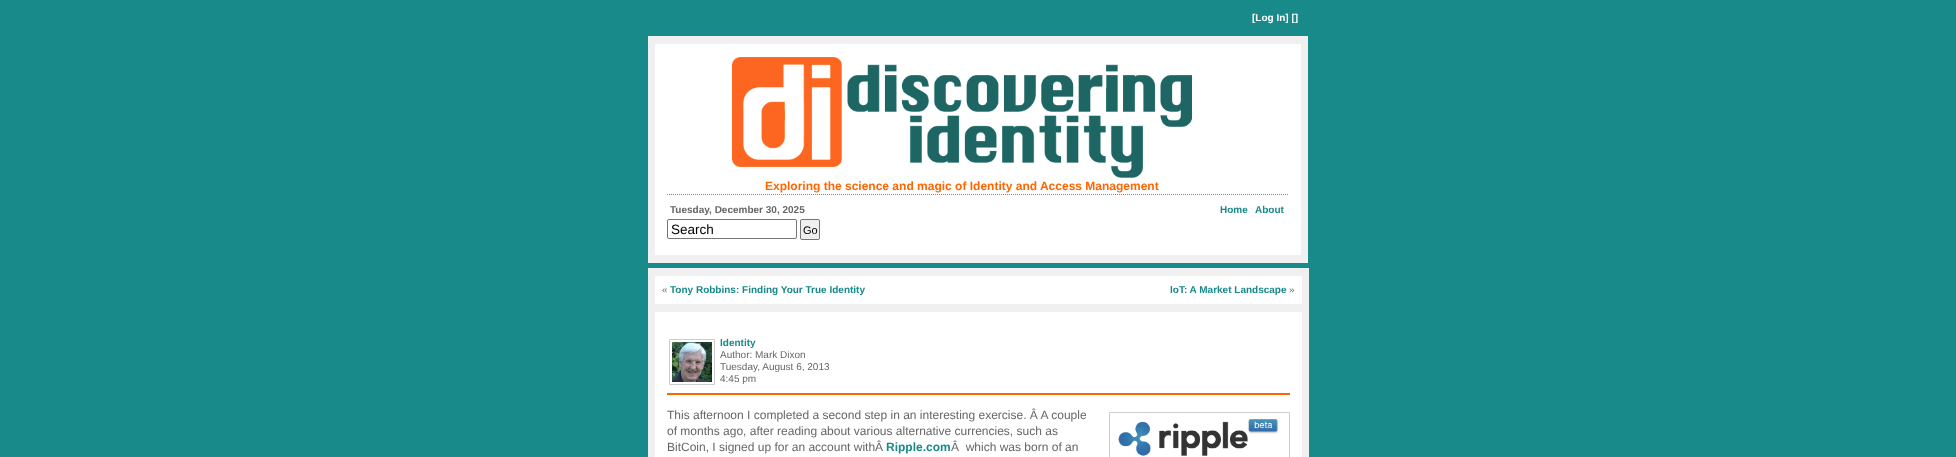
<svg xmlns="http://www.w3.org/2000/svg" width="1956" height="457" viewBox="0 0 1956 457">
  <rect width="100%" height="100%" fill="#198a8a"/>
  <path d="M648 36h660v5H648z" fill="#f0f0f0"/>
  <path d="M648 41h660v222H648z" fill="#f0f0f0"/>
  <path d="M655 44h646v5H655z" fill="#fff"/>
  <path d="M655 49h646v206H655z" fill="#fff"/>
  <image x="732" y="57" width="460" height="121" href="img/1.png"/>
  <path d="M667 194.5H1289" fill="none" stroke="#f60" stroke-dasharray="1 1"/>
  <rect x="667.5" y="219.5" width="129" height="19" rx="1.5" fill="none" stroke="#767676"/>
  <rect x="800.5" y="219.5" width="19" height="20" rx="1.5" fill="#efefef" stroke="#767676"/>
  <path d="M648 268h661v5H648z" fill="#f0f0f0"/>
  <path d="M648 273h661v184H648z" fill="#f0f0f0"/>
  <path d="M655 276h647v5H655z" fill="#fff"/>
  <path d="M655 281h647v23H655z" fill="#fff"/>
  <path d="M655 312h647v5H655z" fill="#fff"/>
  <path d="M655 317h647v140H655z" fill="#fff"/>
  <path d="M669.5 339.5h45v45H669.5z" fill="none" stroke="#ccc"/>
  <image x="672" y="342" width="40" height="40" href="img/2.png"/>
  <path d="M667 393h623v2H667z" fill="#f60"/>
  <path d="M1109.5 412.5h180v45H1109.5z" fill="none" stroke="#ccc"/>
  <image x="1118" y="419" width="161" height="37" href="img/3.png"/>
  <text x="1252" y="21" font-family="Liberation Sans" font-size="10" font-weight="bold" fill="#fff">[Log In] []</text>
  <text x="765" y="190" font-family="Liberation Sans" font-size="12" font-weight="bold" fill="#f60">Exploring the science and magic of Identity and Access Management</text>
  <text x="670" y="213" font-family="Liberation Sans" font-size="10" font-weight="bold" fill="#666">Tuesday, December 30, 2025</text>
  <text x="671" y="234" font-family="Liberation Sans" font-size="13.5" fill="#000">Search</text>
  <text x="803" y="234" font-family="Liberation Sans" font-size="11" fill="#000">Go</text>
  <g font-family="Liberation Sans" font-size="10" font-weight="bold" fill="#198a8a">
    <text x="1220" y="213">Home</text>
    <text x="1255" y="213">About</text>
  </g>
  <text x="662" y="293" font-family="Liberation Sans" font-size="10" fill="#666">«</text>
  <g font-family="Liberation Sans" font-size="10" font-weight="bold" fill="#198a8a">
    <text x="670" y="293">Tony Robbins: Finding Your True Identity</text>
    <text x="1170" y="293">IoT: A Market Landscape</text>
  </g>
  <text x="1289" y="293" font-family="Liberation Sans" font-size="10" fill="#666">»</text>
  <text x="720" y="346" font-family="Liberation Sans" font-size="10" font-weight="bold" fill="#198a8a">Identity</text>
  <g font-family="Liberation Sans" font-size="10" fill="#666">
    <text x="720" y="358">Author: Mark Dixon</text>
    <text x="720" y="370">Tuesday, August 6, 2013</text>
    <text x="720" y="382">4:45 pm</text>
  </g>
  <g font-family="Liberation Sans" font-size="12" fill="#666">
    <text x="667" y="419">This afternoon I completed a second step in an interesting exercise. Â A couple</text>
    <text x="667" y="435">of months ago, after reading about various alternative currencies, such as</text>
    <text x="667" y="451">BitCoin, I signed up for an account withÂ</text>
  </g>
  <text x="886" y="451" font-family="Liberation Sans" font-size="12" font-weight="bold" fill="#198a8a">Ripple.com</text>
  <text x="951" y="451" font-family="Liberation Sans" font-size="12" fill="#666" xml:space="preserve">Â  which was born of an</text>
</svg>
